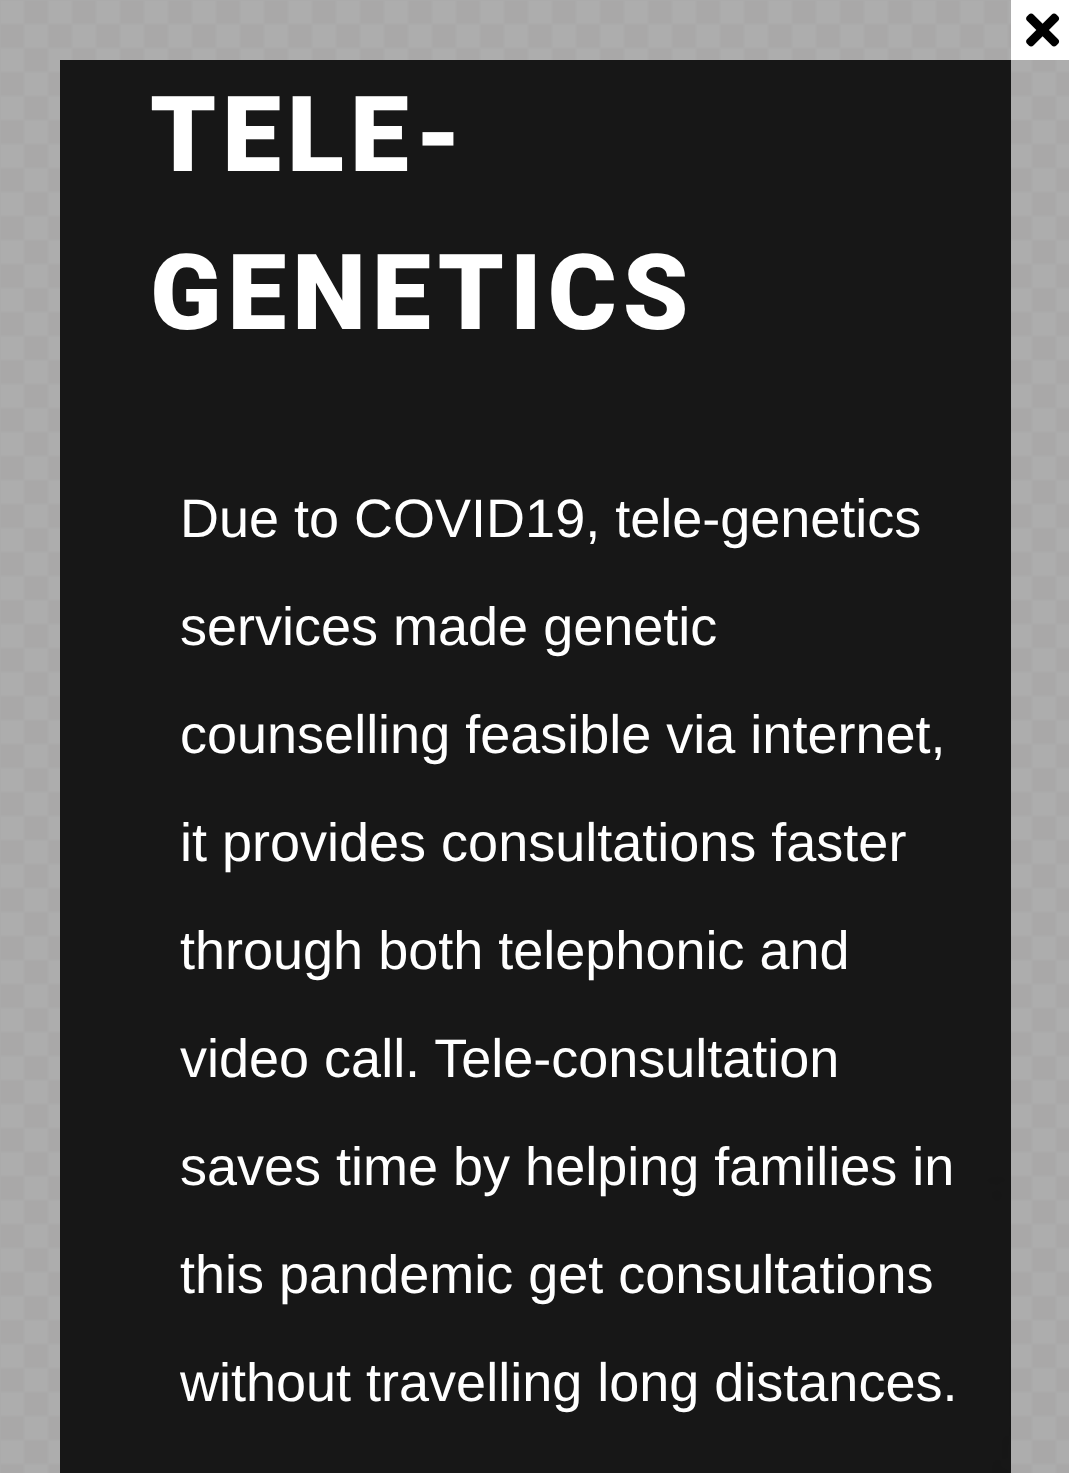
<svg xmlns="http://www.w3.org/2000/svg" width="1069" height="1473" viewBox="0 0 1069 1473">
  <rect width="100%" height="100%" fill="#fff"/>
  <image x="0" y="0" width="1069" height="1473" href="img/1.png"/>
  <path d="M1011 0h58v60H1011z" fill="#fff"/>
  <image x="1026" y="13" width="34" height="34" href="img/2.png"/>
  <image x="60" y="60" width="951" height="1413" href="img/3.png"/>
  <g font-family="Roboto" font-size="105" font-weight="900" letter-spacing="6" fill="#fff">
    <text x="150" y="171">TELE-</text>
    <text x="150" y="329">GENETICS</text>
  </g>
  <g font-family="Liberation Sans" font-size="54" fill="#fff">
    <text x="180" y="537">Due to COVID19, tele-genetics</text>
    <text x="180" y="645">services made genetic</text>
    <text x="180" y="753">counselling feasible via internet,</text>
    <text x="180" y="861">it provides consultations faster</text>
    <text x="180" y="969">through both telephonic and</text>
    <text x="180" y="1077">video call. Tele-consultation</text>
    <text x="180" y="1185">saves time by helping families in</text>
    <text x="180" y="1293">this pandemic get consultations</text>
    <text x="180" y="1401">without travelling long distances.</text>
  </g>
</svg>
